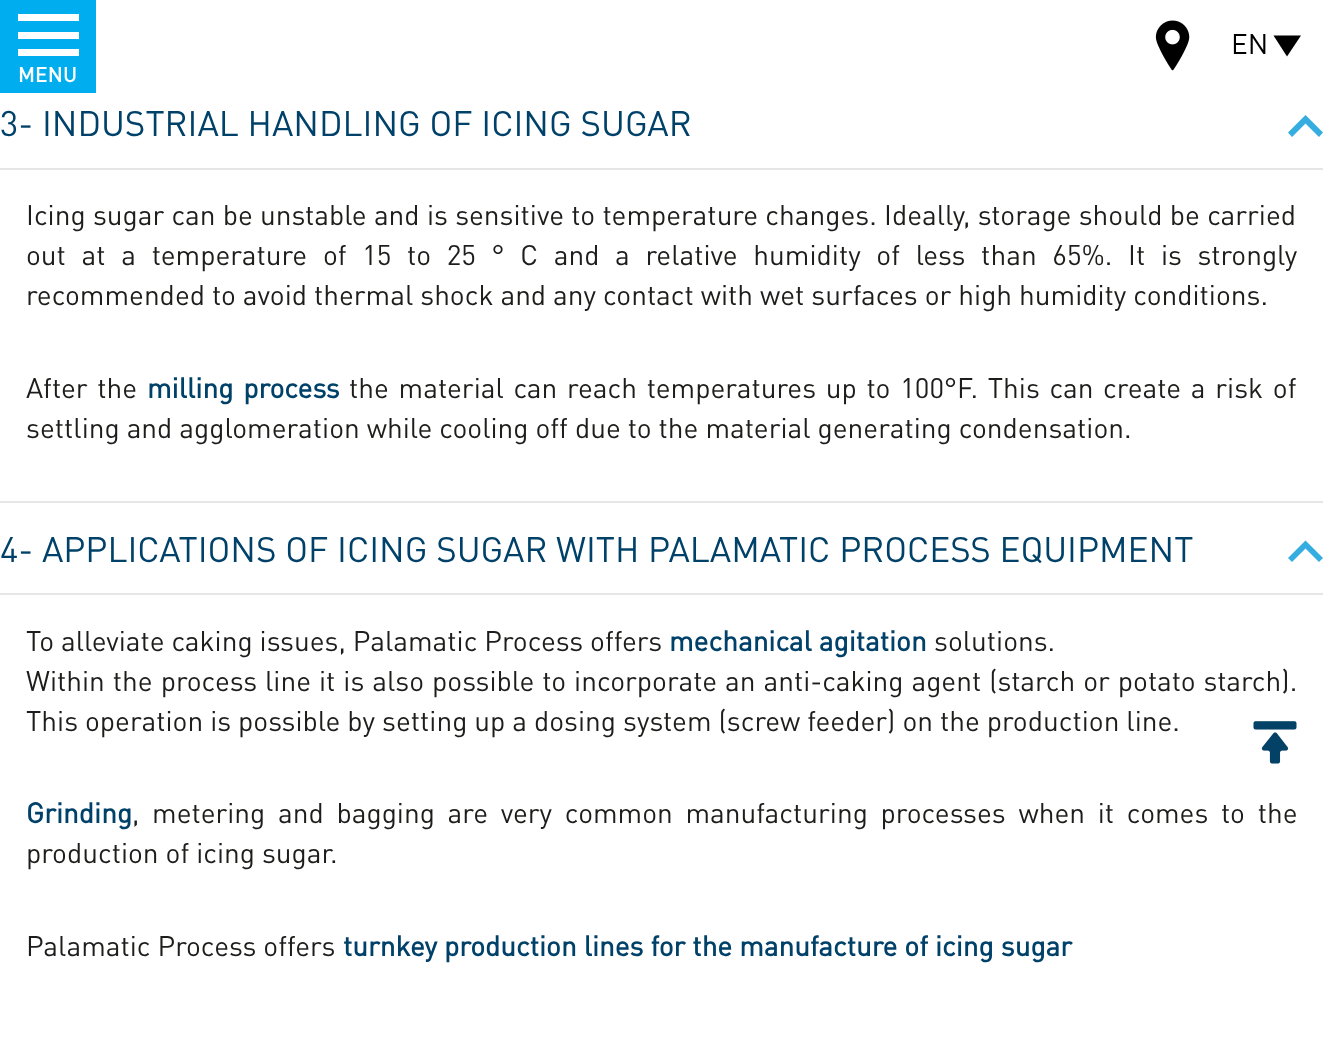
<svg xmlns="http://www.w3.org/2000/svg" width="1323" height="1039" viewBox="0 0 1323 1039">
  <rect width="100%" height="100%" fill="#fff"/>
  <image x="1155" y="20" width="35" height="51" href="img/1.png"/>
  <path d="M1273.5 35.5H1301L1287 56.5Z" fill="#000"/>
  <path d="M0 0h96v93H0z" fill="#00aeef"/>
  <path d="M18 14h61v7H18z" fill="#fff"/>
  <path d="M18 32h61v7H18z" fill="#fff"/>
  <path d="M18 49h61v7H18z" fill="#fff"/>
  <path d="M0 168h1323v2H0z" fill="#e6e6e6"/>
  <path d="M1319 137L1305.5 123.5L1292 137L1288 132.5L1305.5 115L1323 132.5Z" fill="#35ade0"/>
  <path d="M0 501h1323v2H0z" fill="#e6e6e6"/>
  <path d="M0 593h1323v2H0z" fill="#e6e6e6"/>
  <path d="M1319 562L1305.5 548.5L1292 562L1288 558L1305.5 540.5L1323 558Z" fill="#35ade0"/>
  <image x="1253" y="721" width="44" height="43" href="img/2.png"/>
  <text x="1231" y="54" font-family="DIN" font-size="28" fill="#000">EN</text>
  <text x="18" y="82" font-family="DIN" font-size="21" font-weight="500" fill="#fff">MENU</text>
  <text x="0" y="136" font-family="DIN" font-size="35" fill="#004169">3- INDUSTRIAL HANDLING OF ICING SUGAR</text>
  <g font-family="DIN" font-size="28" fill="#1d1d1b">
    <text x="26" y="225" word-spacing="0.3">Icing sugar can be unstable and is sensitive to temperature changes. Ideally, storage should be carried</text>
    <text x="26" y="265" word-spacing="8.7">out at a temperature of 15 to 25 ° C and a relative humidity of less than 65%. It is strongly</text>
    <text x="26" y="305">recommended to avoid thermal shock and any contact with wet surfaces or high humidity conditions.</text>
    <text x="26" y="398" word-spacing="2.75">After the</text>
  </g>
  <text x="147" y="398" word-spacing="3" font-family="DIN" font-size="28" font-weight="bold" fill="#004169">milling process</text>
  <g font-family="DIN" font-size="28" fill="#1d1d1b">
    <text x="349" y="398" word-spacing="2.75">the material can reach temperatures up to 100°F. This can create a risk of</text>
    <text x="26" y="438">settling and agglomeration while cooling off due to the material generating condensation.</text>
  </g>
  <text x="0" y="562" font-family="DIN" font-size="35" fill="#004169">4- APPLICATIONS OF ICING SUGAR WITH PALAMATIC PROCESS EQUIPMENT</text>
  <text x="26" y="651" font-family="DIN" font-size="28" fill="#1d1d1b">To alleviate caking issues, Palamatic Process offers</text>
  <text x="669" y="651" font-family="DIN" font-size="28" font-weight="bold" fill="#004169">mechanical agitation</text>
  <g font-family="DIN" font-size="28" fill="#1d1d1b">
    <text x="934" y="651">solutions.</text>
    <text x="26" y="691" word-spacing="1">Within the process line it is also possible to incorporate an anti-caking agent (starch or potato starch).</text>
    <text x="26" y="731">This operation is possible by setting up a dosing system (screw feeder) on the production line.</text>
  </g>
  <text x="26" y="823" font-family="DIN" font-size="28" font-weight="bold" fill="#004169">Grinding</text>
  <g font-family="DIN" font-size="28" fill="#1d1d1b">
    <text x="132" y="823" word-spacing="5.75">, metering and bagging are very common manufacturing processes when it comes to the</text>
    <text x="26" y="863">production of icing sugar.</text>
    <text x="26" y="956">Palamatic Process offers</text>
  </g>
  <text x="343" y="956" font-family="DIN" font-size="28" font-weight="bold" fill="#004169">turnkey production lines for the manufacture of icing sugar</text>
</svg>
